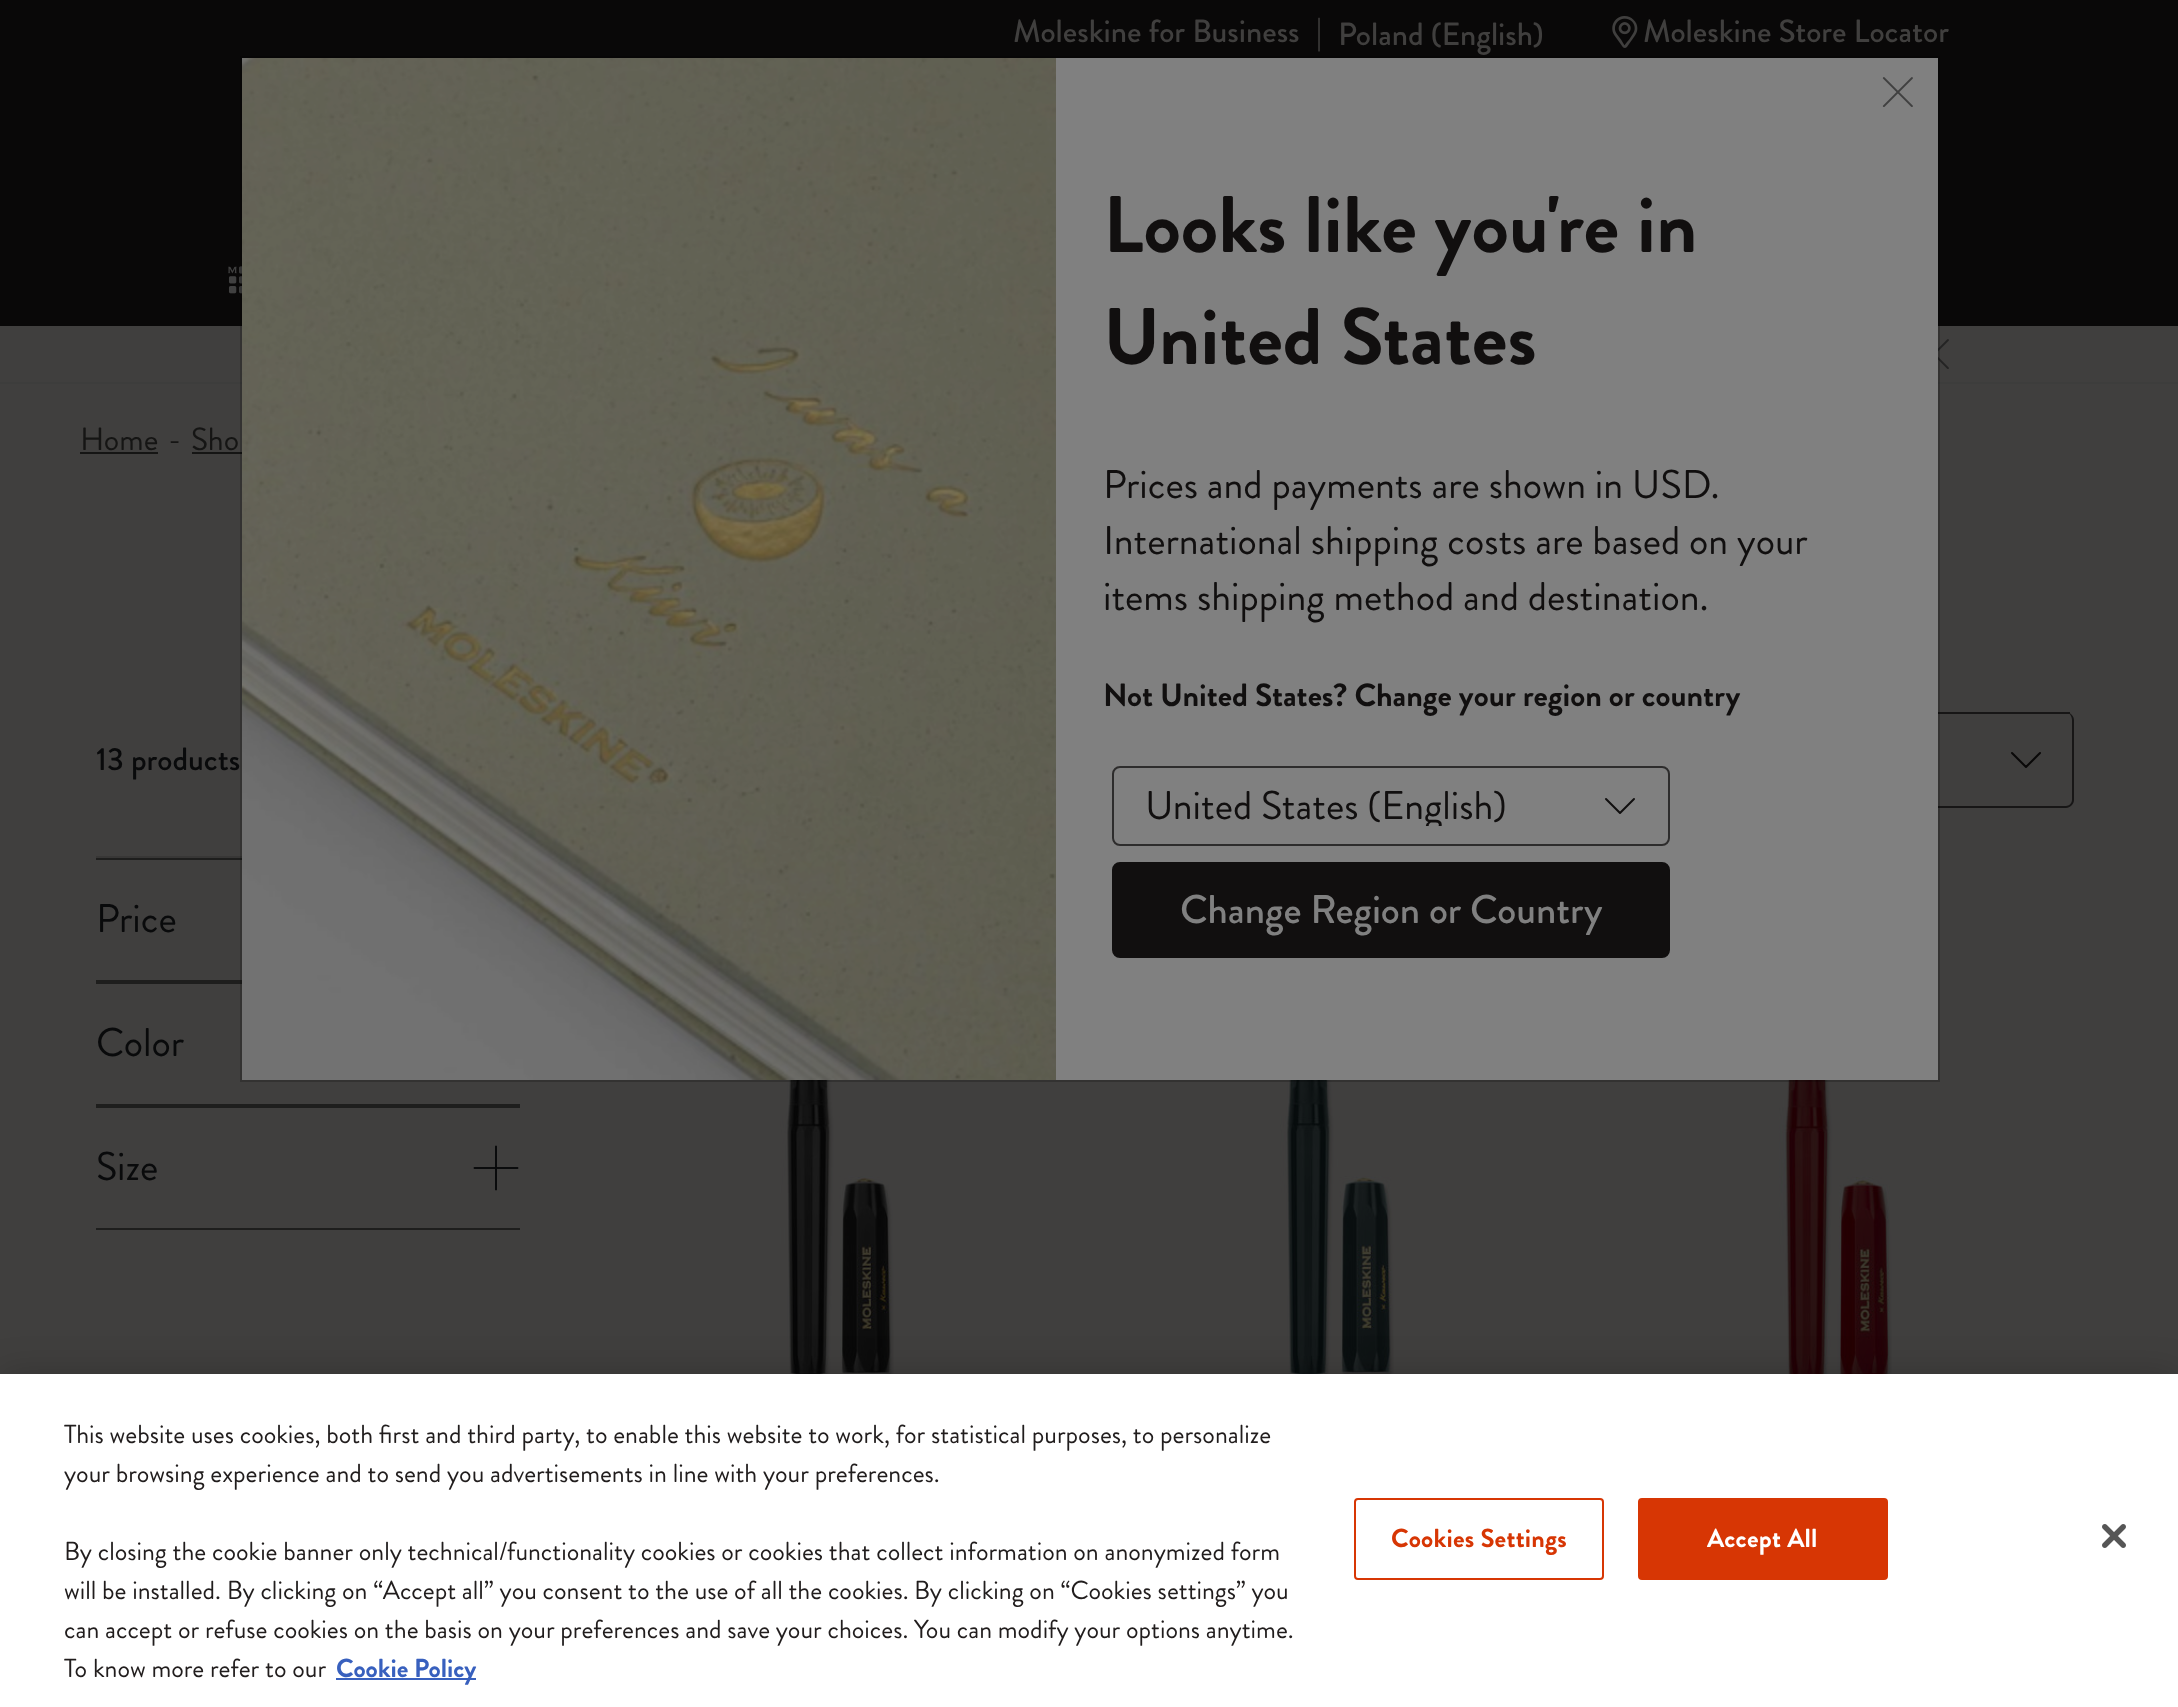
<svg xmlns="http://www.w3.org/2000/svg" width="2178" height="1707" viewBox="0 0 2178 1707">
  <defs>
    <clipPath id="clip1"><path d="M1146 786h458v40H1146z"/></clipPath>
  </defs>
  <rect width="100%" height="100%" fill="#403f3e"/>
  <path d="M0 0h2178v326H0z" fill="#090808"/>
  <image x="1612" y="16" width="26" height="32" href="img/1.png"/>
  <image x="228" y="266" width="14" height="28" href="img/2.png"/>
  <path d="M0 382h2178v2H0z" fill="#3d3d3c"/>
  <image x="1938" y="339" width="11" height="30" href="img/3.png"/>
  <path d="M80 452h78v2H80z" fill="#151514"/>
  <path d="M192 452h50v2H192z" fill="#151514"/>
  <path d="M2012 753L2026 767L2040 753" fill="none" stroke="#090808" stroke-width="2" stroke-linecap="round" stroke-linejoin="round"/>
  <path d="M1622 712H2066C2070 712 2074 716 2074 720V800C2074 804 2070 808 2066 808H1622C1618 808 1614 804 1614 800V720C1614 716 1618 712 1622 712ZM1622 712H2066C2069 712 2072 716 2072 720V800C2072 803 2069 806 2066 806H1622C1619 806 1616 803 1616 800V720C1616 716 1619 712 1622 712Z" fill="#171616" fill-rule="evenodd"/>
  <path d="M1938 712h132v2H1938z" fill="#171616"/>
  <path d="M96 856h146v2H96z" fill="#383736"/>
  <path d="M96 858h146v2H96z" fill="#1e1e1d"/>
  <path d="M96 980h146v4H96z" fill="#1e1e1d"/>
  <path d="M96 1104h424v4H96z" fill="#1e1e1d"/>
  <path d="M96 1228h424v2H96z" fill="#1e1e1d"/>
  <image x="473" y="1145" width="46" height="46" href="img/4.png"/>
  <image x="780" y="1080" width="114" height="294" href="img/5.png"/>
  <image x="1280" y="1080" width="114" height="294" href="img/6.png"/>
  <image x="1779" y="1080" width="113" height="294" href="img/7.png"/>
  <path d="M1056 58h882v1022H1056z" fill="#808080"/>
  <path d="M241 57h1698v1024H241z" fill="none" stroke="#00000033" stroke-width="2"/>
  <image x="242" y="58" width="814" height="1022" href="img/8.png"/>
  <image x="1882" y="77" width="31" height="30" href="img/9.png"/>
  <path d="M1606 799L1620 813L1634 799" fill="none" stroke="#110f0f" stroke-width="2" stroke-linecap="round" stroke-linejoin="round"/>
  <rect x="1113" y="767" width="556" height="78" rx="7" fill="none" stroke="#2d2c2c" stroke-width="2"/>
  <rect x="1113" y="863" width="556" height="94" rx="7" fill="#110f0f" stroke="#110f0f" stroke-width="2"/>
  <path d="M0 1374h2178v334H0z" fill="#00000033" filter="blur(18px)"/>
  <path d="M0 1374h2178v333H0z" fill="#fff"/>
  <path d="M336 1678h140v2H336z" fill="#3860be"/>
  <rect x="1355" y="1499" width="248" height="80" rx="3" fill="none" stroke="#d73604" stroke-width="2"/>
  <rect x="1639" y="1499" width="248" height="80" rx="3" fill="#d73604" stroke="#d73604" stroke-width="2"/>
  <image x="2102" y="1524" width="24" height="24" href="img/10.png"/>
  <g font-family="Brandon Grotesque" font-size="32" font-weight="500" fill="#403f3e">
    <text x="1013" y="42">Moleskine for Business</text>
    <text x="1316" y="42">|</text>
    <text x="1338" y="45">Poland (English)</text>
    <text x="1643" y="42">Moleskine Store Locator</text>
  </g>
  <g font-family="Brandon Grotesque" font-size="32" fill="#151514">
    <text x="80" y="450">Home</text>
    <text x="168" y="450">-</text>
    <text x="191" y="450">Sho</text>
  </g>
  <text x="96" y="770" font-family="Brandon Grotesque" font-size="32" font-weight="500" fill="#090a0b">13 products</text>
  <g font-family="Brandon Grotesque" font-size="40" fill="#090a0b">
    <text x="96" y="932">Price</text>
    <text x="96" y="1056">Color</text>
    <text x="96" y="1180">Size</text>
  </g>
  <g font-family="Brandon Grotesque" font-size="80" font-weight="bold" fill="#110f0f">
    <text x="1103" y="252">Looks like you're in</text>
    <text x="1103" y="364">United States</text>
  </g>
  <g font-family="Brandon Grotesque" font-size="40" fill="#110f0f">
    <text x="1103" y="498">Prices and payments are shown in USD.</text>
    <text x="1103" y="554">International shipping costs are based on your</text>
    <text x="1103" y="610">items shipping method and destination.</text>
  </g>
  <text x="1103" y="706" font-family="Brandon Grotesque" font-size="32" font-weight="bold" fill="#110f0f">Not United States? Change your region or country</text>
  <g clip-path="url(#clip1)">
    <text x="1145" y="819" font-family="Brandon Grotesque" font-size="40" fill="#110f0f">United States (English)</text>
  </g>
  <text x="1180" y="923" font-family="Brandon Grotesque" font-size="40" font-weight="500" fill="#808080">Change Region or Country</text>
  <g font-family="Brandon Grotesque" font-size="26" fill="#211d1d">
    <text x="64" y="1443">This website uses cookies, both first and third party, to enable this website to work, for statistical purposes, to personalize</text>
    <text x="64" y="1482">your browsing experience and to send you advertisements in line with your preferences.</text>
    <text x="64" y="1560">By closing the cookie banner only technical/functionality cookies or cookies that collect information on anonymized form</text>
    <text x="64" y="1599">will be installed. By clicking on “Accept all” you consent to the use of all the cookies.</text>
    <text x="914" y="1599">By clicking on “Cookies settings” you</text>
    <text x="64" y="1638">can accept or refuse cookies on the basis on your preferences and save your choices.</text>
    <text x="914" y="1638">You can modify your options anytime.</text>
    <text x="64" y="1677">To know more refer to our</text>
  </g>
  <text x="336" y="1677" font-family="Brandon Grotesque" font-size="26" font-weight="bold" fill="#3860be">Cookie Policy</text>
  <text x="1391" y="1547" font-family="Brandon Grotesque" font-size="26" font-weight="bold" letter-spacing="0.25" fill="#d73604">Cookies Settings</text>
  <text x="1707" y="1547" font-family="Brandon Grotesque" font-size="26" font-weight="bold" letter-spacing="0.25" fill="#fff">Accept All</text>
</svg>
